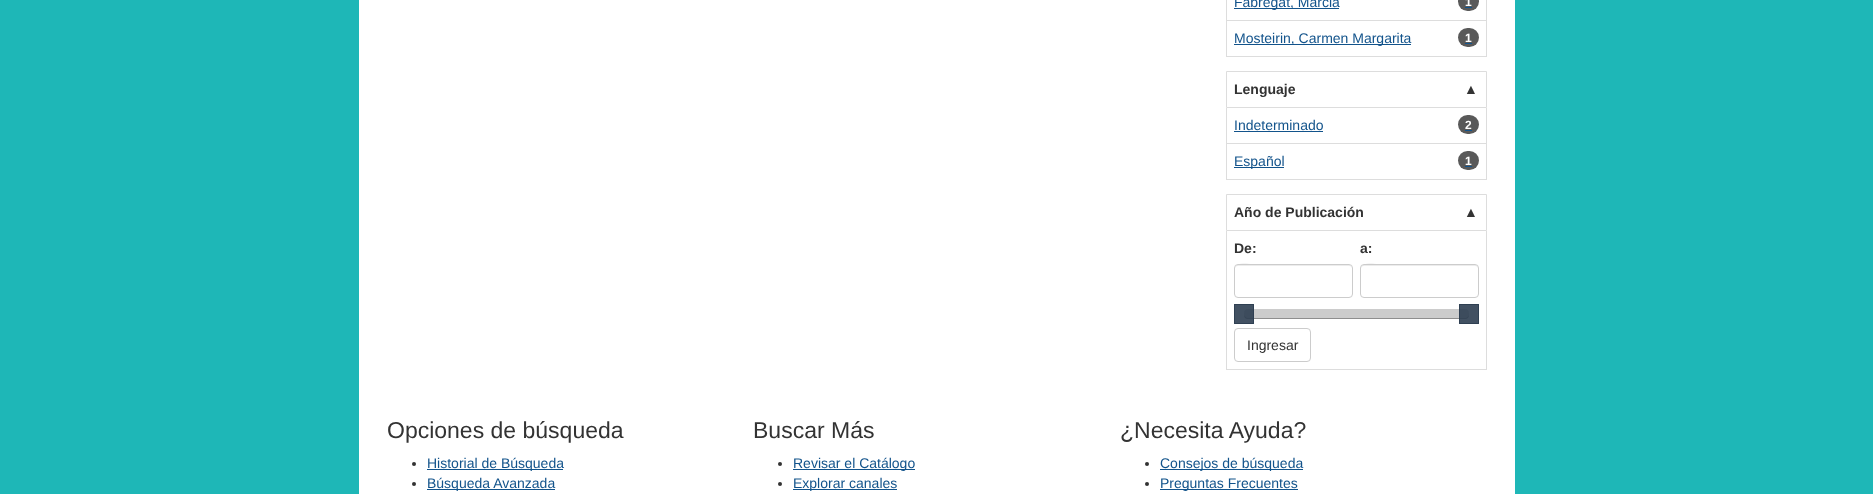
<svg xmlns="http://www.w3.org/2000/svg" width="1873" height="494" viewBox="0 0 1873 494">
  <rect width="100%" height="100%" fill="#1eb7b7"/>
  <path d="M359 0h1156v494H359z" fill="#fff"/>
  <path d="M1486 0h1v57H1486z" fill="#ddd"/>
  <path d="M1226 0h1v57H1226z" fill="#ddd"/>
  <path d="M1227 20h259v1H1227z" fill="#ddd"/>
  <path d="M1234 8h105v1H1234z" fill="#12538b"/>
  <rect x="1458" y="-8" width="21" height="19" rx="9.5" fill="#595959"/>
  <path d="M1465 7h7v1H1465z" fill="#12538b"/>
  <path d="M1227 56h259v1H1227z" fill="#ddd"/>
  <path d="M1234 44h177v1H1234z" fill="#12538b"/>
  <rect x="1458" y="28" width="21" height="19" rx="9.5" fill="#595959"/>
  <path d="M1465 43h7v1H1465z" fill="#12538b"/>
  <path d="M1226.5 71.5h260v36H1226.5z" fill="none" stroke="#ddd"/>
  <path d="M1486 108h1v72H1486z" fill="#ddd"/>
  <path d="M1226 108h1v72H1226z" fill="#ddd"/>
  <path d="M1227 143h259v1H1227z" fill="#ddd"/>
  <path d="M1234 131h89v1H1234z" fill="#12538b"/>
  <rect x="1458" y="115" width="21" height="19" rx="9.5" fill="#595959"/>
  <path d="M1465 130h7v1H1465z" fill="#12538b"/>
  <path d="M1227 179h259v1H1227z" fill="#ddd"/>
  <path d="M1234 167h50v1H1234z" fill="#12538b"/>
  <rect x="1458" y="151" width="21" height="19" rx="9.5" fill="#595959"/>
  <path d="M1465 166h7v1H1465z" fill="#12538b"/>
  <path d="M1226.5 194.5h260v36H1226.5z" fill="none" stroke="#ddd"/>
  <path d="M1486 231h1v139H1486z" fill="#ddd"/>
  <path d="M1226 231h1v139H1226z" fill="#ddd"/>
  <path d="M1227 369h259v1H1227z" fill="#ddd"/>
  <path d="M1238 266H1349C1351 266 1352 267 1352 269C1352 267 1351 265 1349 265H1256C1255 265 1235 260 1235 269C1235 267 1236 266 1238 266Z" fill="#ececec"/>
  <rect x="1234.5" y="264.5" width="118" height="33" rx="3.5" fill="none" stroke="#ccc"/>
  <path d="M1364 266H1475C1477 266 1478 267 1478 269C1478 267 1477 265 1475 265H1382C1381 265 1361 260 1361 269C1361 267 1362 266 1364 266Z" fill="#ececec"/>
  <rect x="1360.5" y="264.5" width="118" height="33" rx="3.5" fill="none" stroke="#ccc"/>
  <rect x="1244" y="309" width="225" height="10" rx="4" fill="#ccc"/>
  <path d="M1244 314C1244 317 1245 319 1248 319H1465C1468 319 1469 317 1469 314C1469 316 1467 318 1465 318H1248C1246 318 1244 316 1244 314Z" fill="#0000004d"/>
  <path d="M1234 304h20v20H1234z" fill="#2e3e51e6"/>
  <path d="M1234.5 304.5h19v19H1234.5z" fill="none" stroke="#2e3e51e6"/>
  <path d="M1459 304h20v20H1459z" fill="#2e3e51e6"/>
  <path d="M1459.5 304.5h19v19H1459.5z" fill="none" stroke="#2e3e51e6"/>
  <rect x="1234.5" y="328.5" width="76" height="33" rx="3.5" fill="none" stroke="#ccc"/>
  <circle cx="414" cy="464" r="2" fill="#333"/>
  <path d="M427 469h136v1H427z" fill="#12538b"/>
  <circle cx="414" cy="484" r="2" fill="#333"/>
  <path d="M427 489h128v1H427z" fill="#12538b"/>
  <circle cx="780" cy="464" r="2" fill="#333"/>
  <path d="M793 469h122v1H793z" fill="#12538b"/>
  <circle cx="780" cy="484" r="2" fill="#333"/>
  <path d="M793 489h104v1H793z" fill="#12538b"/>
  <circle cx="1147" cy="464" r="2" fill="#333"/>
  <path d="M1160 469h143v1H1160z" fill="#12538b"/>
  <circle cx="1147" cy="484" r="2" fill="#333"/>
  <path d="M1160 489h138v1H1160z" fill="#12538b"/>
  <text x="1234" y="7" font-family="Liberation Sans" font-size="14" fill="#12538b">Fabregat, Marcia</text>
  <text x="1465" y="6" font-family="Liberation Sans" font-size="12" font-weight="bold" fill="#fff">1</text>
  <text x="1234" y="43" font-family="Liberation Sans" font-size="14" fill="#12538b">Mosteirin, Carmen Margarita</text>
  <text x="1465" y="42" font-family="Liberation Sans" font-size="12" font-weight="bold" fill="#fff">1</text>
  <g font-family="Liberation Sans" font-size="14" font-weight="bold" fill="#333">
    <text x="1234" y="94">Lenguaje</text>
    <text x="1464" y="94">▲</text>
  </g>
  <text x="1234" y="130" font-family="Liberation Sans" font-size="14" fill="#12538b">Indeterminado</text>
  <text x="1465" y="129" font-family="Liberation Sans" font-size="12" font-weight="bold" fill="#fff">2</text>
  <text x="1234" y="166" font-family="Liberation Sans" font-size="14" fill="#12538b">Español</text>
  <text x="1465" y="165" font-family="Liberation Sans" font-size="12" font-weight="bold" fill="#fff">1</text>
  <g font-family="Liberation Sans" font-size="14" font-weight="bold" fill="#333">
    <text x="1234" y="217">Año de Publicación</text>
    <text x="1464" y="217">▲</text>
    <text x="1234" y="253">De:</text>
    <text x="1360" y="253">a:</text>
  </g>
  <text x="1247" y="350" font-family="Liberation Sans" font-size="14" fill="#333">Ingresar</text>
  <text x="387" y="438" font-family="Liberation Sans" font-size="23" fill="#333">Opciones de búsqueda</text>
  <g font-family="Liberation Sans" font-size="14" fill="#12538b">
    <text x="427" y="468">Historial de Búsqueda</text>
    <text x="427" y="488">Búsqueda Avanzada</text>
  </g>
  <text x="753" y="438" font-family="Liberation Sans" font-size="23" fill="#333">Buscar Más</text>
  <g font-family="Liberation Sans" font-size="14" fill="#12538b">
    <text x="793" y="468">Revisar el Catálogo</text>
    <text x="793" y="488">Explorar canales</text>
  </g>
  <text x="1120" y="438" font-family="Liberation Sans" font-size="23" fill="#333">¿Necesita Ayuda?</text>
  <g font-family="Liberation Sans" font-size="14" fill="#12538b">
    <text x="1160" y="468">Consejos de búsqueda</text>
    <text x="1160" y="488">Preguntas Frecuentes</text>
  </g>
</svg>
